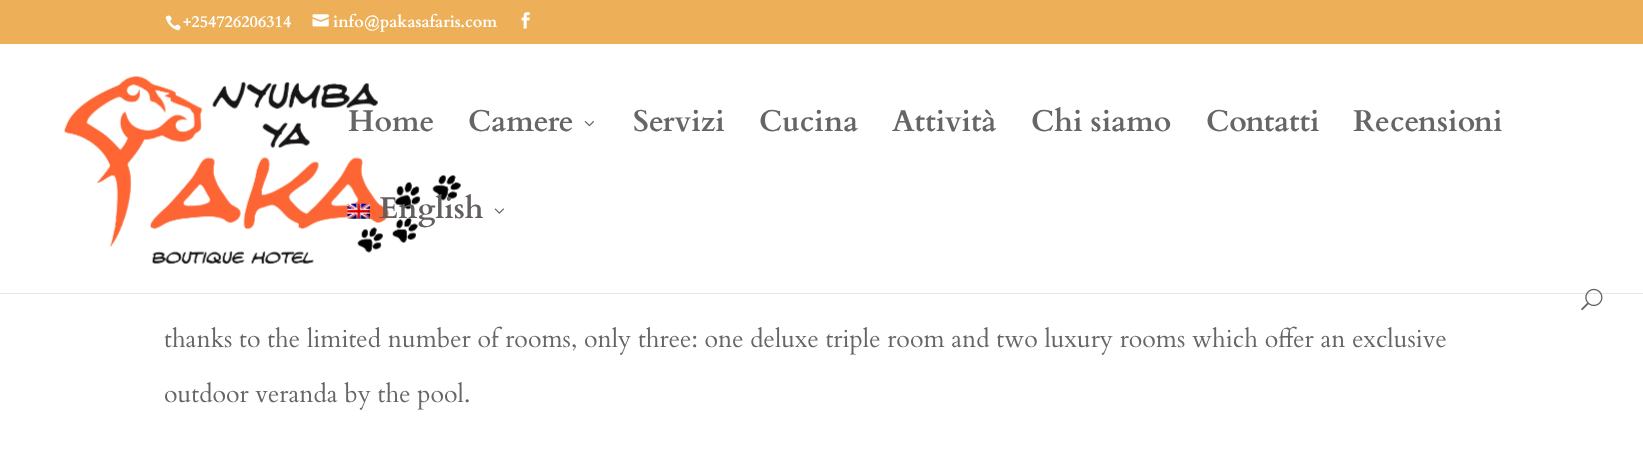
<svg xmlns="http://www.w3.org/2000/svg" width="1643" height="458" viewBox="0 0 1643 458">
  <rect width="100%" height="100%" fill="#fff"/>
  <path d="M0 0h1643v44H0z" fill="#edb059"/>
  <image x="165" y="15" width="16" height="16" href="img/1.png"/>
  <image x="312" y="14" width="17" height="13" href="img/2.png"/>
  <image x="521" y="12" width="9" height="17" href="img/3.png"/>
  <path d="M0 292V294H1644V45V292Z" fill="#0000001a"/>
  <path d="M0 292h1643v1H0z" fill="#fff"/>
  <image x="64" y="76" width="397" height="189" href="img/4.png"/>
  <image x="584" y="121" width="10" height="6" href="img/5.png"/>
  <image x="347" y="203" width="23" height="16" href="img/6.png"/>
  <image x="494" y="208" width="10" height="6" href="img/7.png"/>
  <image x="1581" y="288" width="22" height="23" href="img/8.png"/>
  <g font-family="Cardo" font-size="16.25" font-weight="bold" fill="#fff">
    <text x="183" y="27">+254726206314</text>
    <text x="333" y="27">info@pakasafaris.com</text>
  </g>
  <g font-family="Cardo" font-size="30" font-weight="bold" fill="#666">
    <text x="348" y="131">Home</text>
    <text x="468" y="131">Camere</text>
    <text x="633" y="131">Servizi</text>
    <text x="759" y="131">Cucina</text>
    <text x="892" y="131">Attività</text>
    <text x="1031" y="131">Chi siamo</text>
    <text x="1206" y="131">Contatti</text>
    <text x="1353" y="131">Recensioni</text>
  </g>
  <text x="379" y="218" font-family="Cardo" font-size="30" font-weight="bold" fill="#625f5e">English</text>
  <g font-family="Cardo" font-size="25" fill="#666">
    <text x="164" y="347">thanks to the limited number of rooms, only three: one deluxe triple room and two luxury rooms which offer an exclusive</text>
    <text x="164" y="402">outdoor veranda by the pool.</text>
  </g>
</svg>
